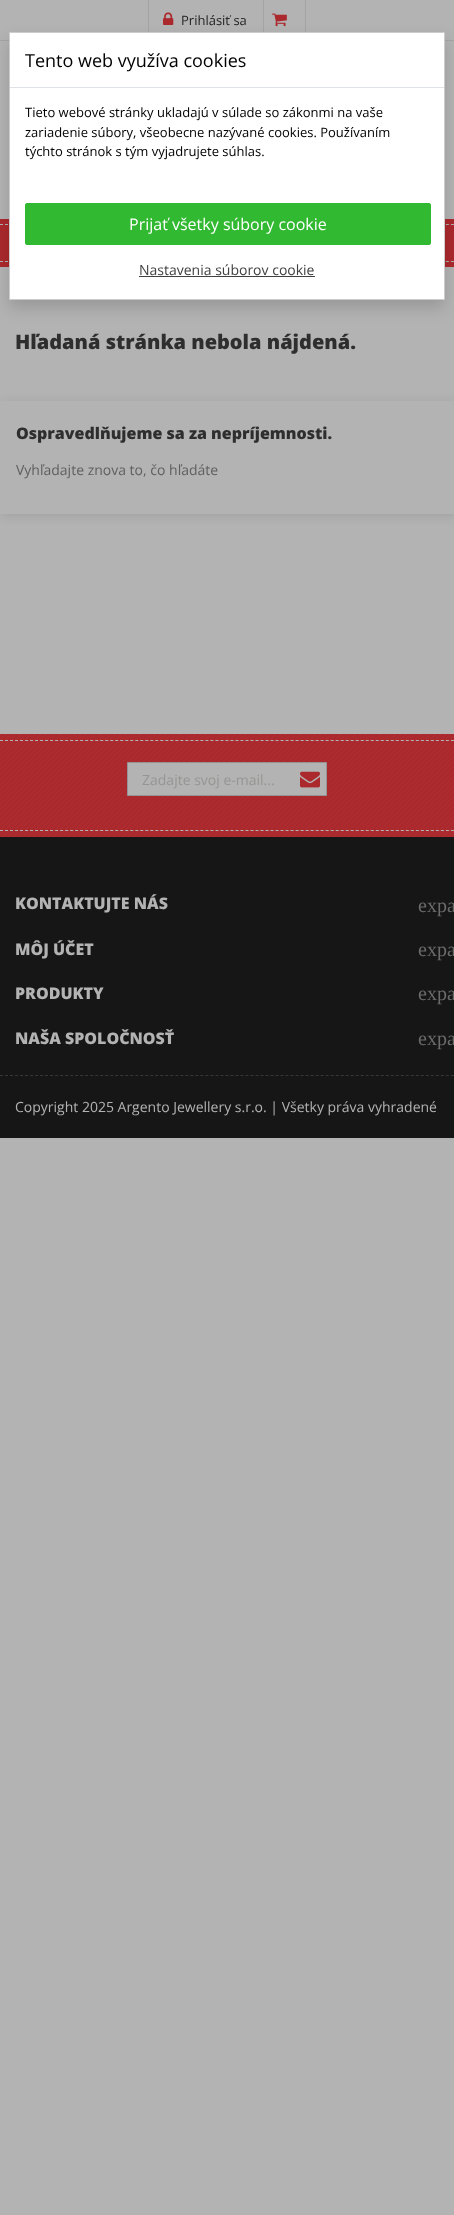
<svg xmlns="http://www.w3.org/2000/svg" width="454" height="2215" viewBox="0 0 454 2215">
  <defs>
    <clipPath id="clip1"><path d="M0 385H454V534H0ZM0 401H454V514H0Z" clip-rule="evenodd"/></clipPath>
  </defs>
  <rect width="100%" height="100%" fill="#b3b3b3"/>
  <path d="M0 40h454v1H0z" fill="#a4a4a4"/>
  <path d="M148 0h1v40H148z" fill="#a4a4a4"/>
  <image x="163" y="12" width="11" height="13" href="img/1.png"/>
  <path d="M305 0h1v40H305z" fill="#a4a4a4"/>
  <path d="M263 0h1v40H263z" fill="#a4a4a4"/>
  <image x="272" y="13" width="15" height="14" href="img/2.png"/>
  <path d="M0 219h454v48H0z" fill="#ab292d"/>
  <path d="M0 224.5H454" fill="none" stroke="#b3b3b3" stroke-dasharray="3 2.01"/>
  <path d="M0 261.5H454" fill="none" stroke="#b3b3b3" stroke-dasharray="3 2.01"/>
  <g clip-path="url(#clip1)">
    <path d="M2 403h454v113H2z" fill="#0000001a" filter="blur(5.5px)"/>
  </g>
  <path d="M0 837h454v301H0z" fill="#161616"/>
  <path d="M0 734h454v103H0z" fill="#ab292d"/>
  <image x="0" y="734" width="454" height="103" href="img/3.png"/>
  <path d="M0 740.5H454" fill="none" stroke="#b3b3b3" stroke-dasharray="3 2.01"/>
  <path d="M127.5 762.5h199v33H127.5z" fill="#b3b3b3" stroke="#949494"/>
  <image x="300" y="771" width="20" height="17" href="img/4.png"/>
  <path d="M0 830.5H454" fill="none" stroke="#b3b3b3" stroke-dasharray="3 2.01"/>
  <path d="M0 1075.5H454" fill="none" stroke="#373737" stroke-dasharray="3 2.01"/>
  <path d="M9 40h436v268H9z" fill="#00000026" filter="blur(8px)"/>
  <path d="M9.5 32.5h435v267H9.5z" fill="#fff" stroke="#ccc"/>
  <path d="M10 87h434v1H10z" fill="#dee2e6"/>
  <rect x="25.5" y="203.5" width="405" height="41" rx="1.5" fill="#31b931" stroke="#31b931"/>
  <path d="M139 276h176v1H139z" fill="#404040"/>
  <text x="181" y="25" font-family="Open Sans" font-size="13" fill="#242424">Prihlásiť sa</text>
  <text x="15" y="349" font-family="Open Sans" font-size="20" font-weight="800" fill="#2e2e2e">Hľadaná stránka nebola nájdená.</text>
  <text x="16" y="439" font-family="Open Sans" font-size="16" font-weight="800" fill="#2e2e2e">Ospravedlňujeme sa za nepríjemnosti.</text>
  <text x="16" y="475" font-family="Open Sans" font-size="14" fill="#5f5f5f">Vyhľadajte znova to, čo hľadáte</text>
  <text x="142" y="785" font-family="Open Sans" font-size="14" fill="#969594">Zadajte svoj e-mail...</text>
  <text x="15" y="909" font-family="Open Sans" font-size="16" font-weight="800" fill="#b3b3b3">KONTAKTUJTE NÁS</text>
  <text x="418" y="912" font-family="Liberation Serif" font-size="20" fill="#6b6b6b">expa</text>
  <text x="15" y="955" font-family="Open Sans" font-size="16" font-weight="800" fill="#b3b3b3">MÔJ ÚČET</text>
  <text x="418" y="956" font-family="Liberation Serif" font-size="20" fill="#6b6b6b">expa</text>
  <text x="15" y="999" font-family="Open Sans" font-size="16" font-weight="800" fill="#b3b3b3">PRODUKTY</text>
  <text x="418" y="1000" font-family="Liberation Serif" font-size="20" fill="#6b6b6b">expa</text>
  <text x="15" y="1044" font-family="Open Sans" font-size="16" font-weight="800" fill="#b3b3b3">NAŠA SPOLOČNOSŤ</text>
  <text x="418" y="1045" font-family="Liberation Serif" font-size="20" fill="#6b6b6b">expa</text>
  <text x="15" y="1112" font-family="Open Sans" font-size="14" fill="#b3b3b3">Copyright 2025 Argento Jewellery s.r.o. | Všetky práva vyhradené</text>
  <text x="25" y="67" font-family="Open Sans" font-size="18" fill="#000">Tento web využíva cookies</text>
  <g font-family="Open Sans" font-size="13" fill="#000">
    <text x="25" y="117">Tieto webové stránky ukladajú v súlade so zákonmi na vaše</text>
    <text x="25" y="137">zariadenie súbory, všeobecne nazývané cookies. Používaním</text>
    <text x="25" y="156">týchto stránok s tým vyjadrujete súhlas.</text>
  </g>
  <text x="129" y="230" font-family="Open Sans" font-size="16" fill="#fff">Prijať všetky súbory cookie</text>
  <text x="139" y="275" font-family="Open Sans" font-size="14" fill="#404040">Nastavenia súborov cookie</text>
</svg>
